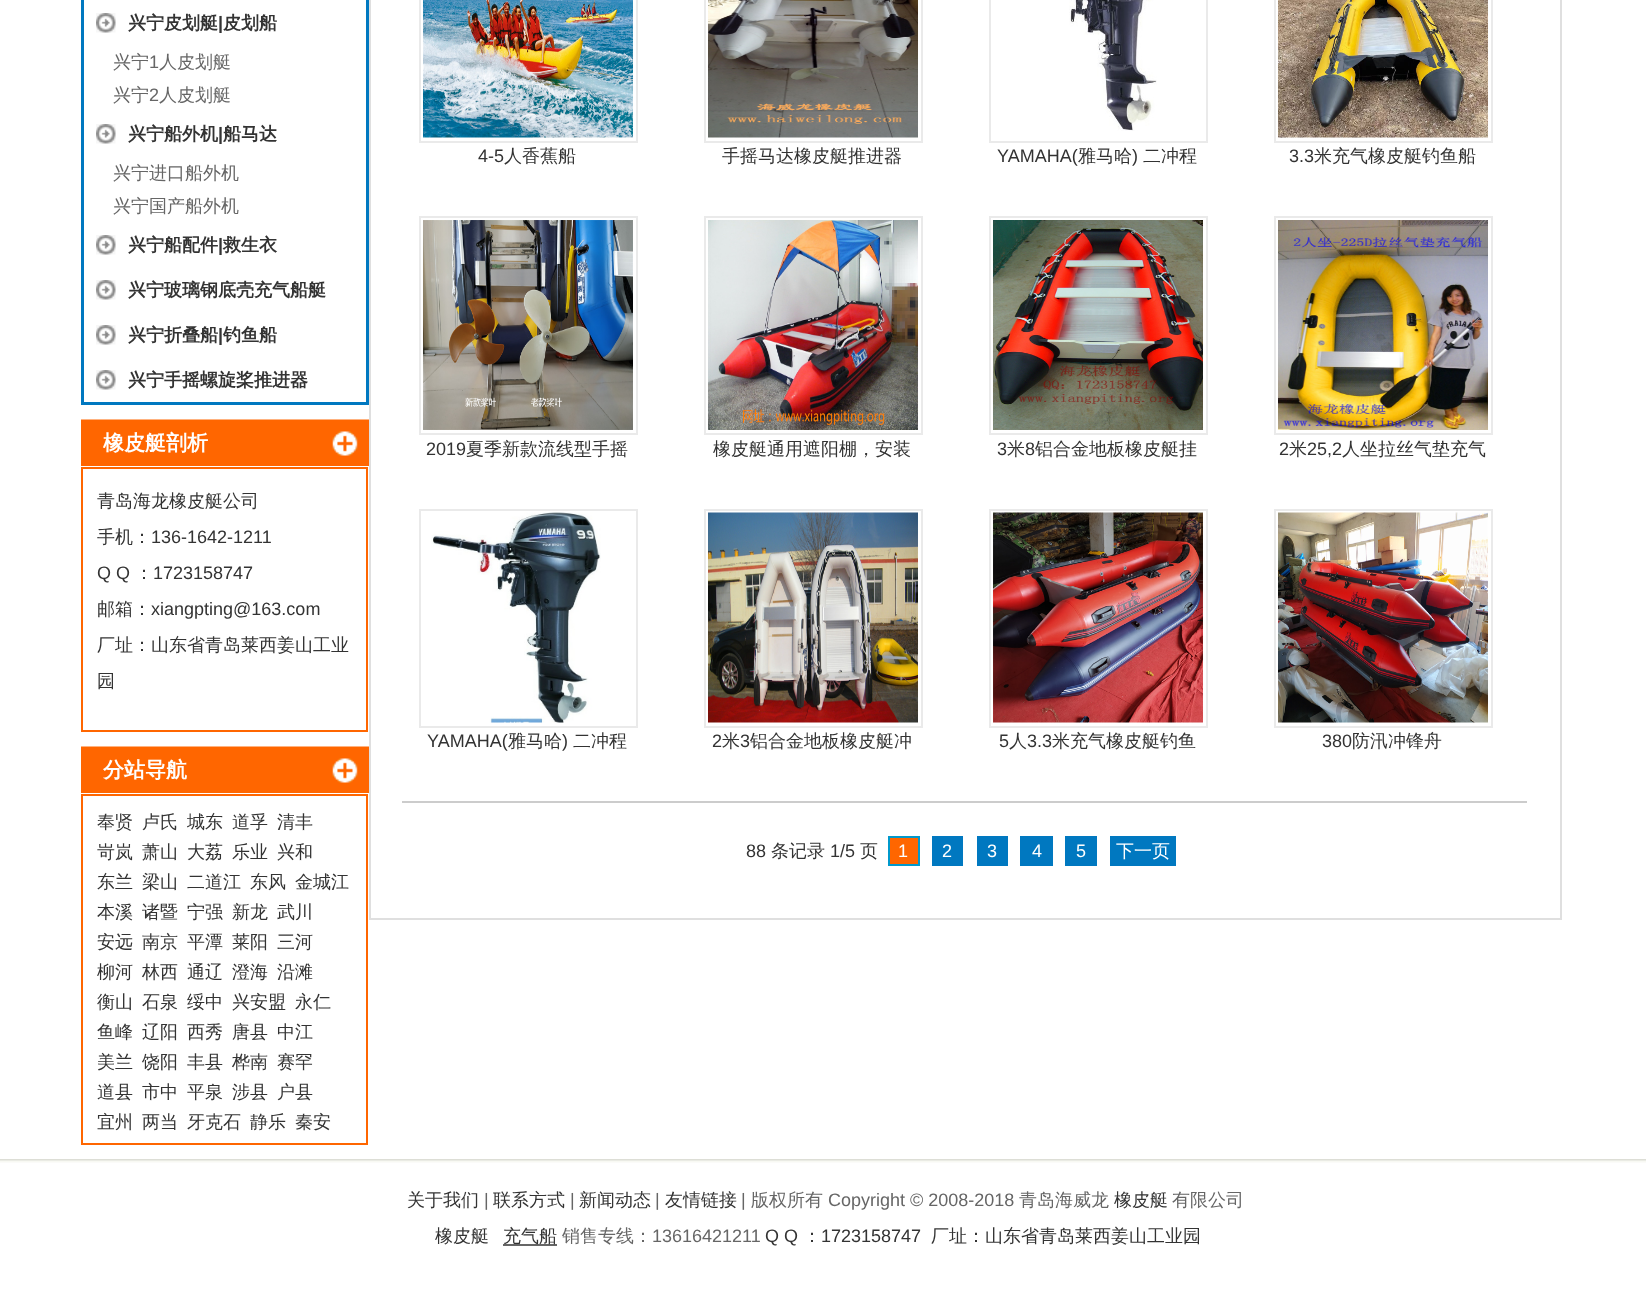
<svg xmlns="http://www.w3.org/2000/svg" width="1646" height="1290" viewBox="0 0 1646 1290">
  <rect width="100%" height="100%" fill="#fff"/>
  <path d="M82.5 -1.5h285v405H82.5z" fill="none" stroke="#0078c0" stroke-width="3"/>
  <image x="96" y="13" width="20" height="20" href="img/1.png"/>
  <image x="96" y="124" width="20" height="20" href="img/1.png"/>
  <image x="96" y="235" width="20" height="20" href="img/1.png"/>
  <image x="96" y="280" width="20" height="20" href="img/1.png"/>
  <image x="96" y="325" width="20" height="20" href="img/1.png"/>
  <image x="96" y="370" width="20" height="20" href="img/1.png"/>
  <image x="81" y="419" width="288" height="47" href="img/2.png"/>
  <path d="M82 468h285v263H82z" fill="none" stroke="#f60" stroke-width="2"/>
  <image x="81" y="746" width="288" height="47" href="img/2.png"/>
  <path d="M82 795h285v349H82z" fill="none" stroke="#f60" stroke-width="2"/>
  <path d="M370 -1h1191v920H370z" fill="none" stroke="#dfdfdf" stroke-width="2"/>
  <path d="M420 -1h217v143H420z" fill="none" stroke="#eaeaea" stroke-width="2"/>
  <image x="423" y="0" width="210" height="138" href="img/3.png"/>
  <path d="M705 -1h217v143H705z" fill="none" stroke="#eaeaea" stroke-width="2"/>
  <image x="708" y="0" width="210" height="138" href="img/4.png"/>
  <path d="M990 -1h217v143H990z" fill="none" stroke="#eaeaea" stroke-width="2"/>
  <image x="1069" y="0" width="88" height="131" href="img/5.png"/>
  <path d="M1275 -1h217v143H1275z" fill="none" stroke="#eaeaea" stroke-width="2"/>
  <image x="1278" y="0" width="210" height="138" href="img/6.png"/>
  <path d="M420 217h217v217H420z" fill="none" stroke="#eaeaea" stroke-width="2"/>
  <image x="423" y="220" width="210" height="210" href="img/7.png"/>
  <path d="M705 217h217v217H705z" fill="none" stroke="#eaeaea" stroke-width="2"/>
  <image x="708" y="220" width="210" height="210" href="img/8.png"/>
  <path d="M990 217h217v217H990z" fill="none" stroke="#eaeaea" stroke-width="2"/>
  <image x="993" y="220" width="210" height="210" href="img/9.png"/>
  <path d="M1275 217h217v217H1275z" fill="none" stroke="#eaeaea" stroke-width="2"/>
  <image x="1278" y="220" width="210" height="210" href="img/10.png"/>
  <path d="M420 510h217v217H420z" fill="none" stroke="#eaeaea" stroke-width="2"/>
  <image x="431" y="512" width="170" height="211" href="img/11.png"/>
  <path d="M705 510h217v217H705z" fill="none" stroke="#eaeaea" stroke-width="2"/>
  <image x="708" y="512" width="210" height="211" href="img/12.png"/>
  <path d="M990 510h217v217H990z" fill="none" stroke="#eaeaea" stroke-width="2"/>
  <image x="993" y="512" width="210" height="211" href="img/13.png"/>
  <path d="M1275 510h217v217H1275z" fill="none" stroke="#eaeaea" stroke-width="2"/>
  <image x="1278" y="512" width="210" height="211" href="img/14.png"/>
  <path d="M402 801h1125v2H402z" fill="#ccc"/>
  <path d="M889 837h30v28H889z" fill="#f60" stroke="#09c" stroke-width="2"/>
  <path d="M932 836h31v30H932z" fill="#0078c0"/>
  <path d="M977 836h31v30H977z" fill="#0078c0"/>
  <path d="M1020 836h33v30H1020z" fill="#0078c0"/>
  <path d="M1065 836h32v30H1065z" fill="#0078c0"/>
  <path d="M1110 836h66v30H1110z" fill="#0078c0"/>
  <image x="0" y="1159" width="1646" height="4" href="img/15.png"/>
  <path d="M503 1244h54v2H503z" fill="#666"/>
  <text x="128" y="29" font-family="WenQuanYi Zen Hei" font-size="18" font-weight="bold" fill="#333">兴宁皮划艇</text>
  <text x="218" y="29" font-family="Liberation Sans" font-size="18" font-weight="bold" fill="#333">|</text>
  <text x="223" y="29" font-family="WenQuanYi Zen Hei" font-size="18" font-weight="bold" fill="#333">皮划船</text>
  <text x="113" y="68" font-family="WenQuanYi Zen Hei" font-size="18" font-weight="500" fill="#666">兴宁</text>
  <text x="149" y="68" font-family="Liberation Sans" font-size="18" fill="#666">1</text>
  <g font-family="WenQuanYi Zen Hei" font-size="18" font-weight="500" fill="#666">
    <text x="159" y="68">人皮划艇</text>
    <text x="113" y="101">兴宁</text>
  </g>
  <text x="149" y="101" font-family="Liberation Sans" font-size="18" fill="#666">2</text>
  <text x="159" y="101" font-family="WenQuanYi Zen Hei" font-size="18" font-weight="500" fill="#666">人皮划艇</text>
  <text x="128" y="140" font-family="WenQuanYi Zen Hei" font-size="18" font-weight="bold" fill="#333">兴宁船外机</text>
  <text x="218" y="140" font-family="Liberation Sans" font-size="18" font-weight="bold" fill="#333">|</text>
  <text x="223" y="140" font-family="WenQuanYi Zen Hei" font-size="18" font-weight="bold" fill="#333">船马达</text>
  <g font-family="WenQuanYi Zen Hei" font-size="18" font-weight="500" fill="#666">
    <text x="113" y="179">兴宁进口船外机</text>
    <text x="113" y="212">兴宁国产船外机</text>
  </g>
  <text x="128" y="251" font-family="WenQuanYi Zen Hei" font-size="18" font-weight="bold" fill="#333">兴宁船配件</text>
  <text x="218" y="251" font-family="Liberation Sans" font-size="18" font-weight="bold" fill="#333">|</text>
  <g font-family="WenQuanYi Zen Hei" font-size="18" font-weight="bold" fill="#333">
    <text x="223" y="251">救生衣</text>
    <text x="128" y="296">兴宁玻璃钢底壳充气船艇</text>
    <text x="128" y="341">兴宁折叠船</text>
  </g>
  <text x="218" y="341" font-family="Liberation Sans" font-size="18" font-weight="bold" fill="#333">|</text>
  <g font-family="WenQuanYi Zen Hei" font-size="18" font-weight="bold" fill="#333">
    <text x="223" y="341">钓鱼船</text>
    <text x="128" y="386">兴宁手摇螺旋桨推进器</text>
  </g>
  <text x="103" y="450" font-family="WenQuanYi Zen Hei" font-size="21" font-weight="bold" fill="#fff">橡皮艇剖析</text>
  <g font-family="WenQuanYi Zen Hei" font-size="18" font-weight="500" fill="#333">
    <text x="97" y="507">青岛海龙橡皮艇公司</text>
    <text x="97" y="543">手机：</text>
  </g>
  <g font-family="Liberation Sans" font-size="18" fill="#333">
    <text x="151" y="543">136-1642-1211</text>
    <text x="97" y="579">Q Q</text>
  </g>
  <text x="135" y="579" font-family="WenQuanYi Zen Hei" font-size="18" font-weight="500" fill="#333">：</text>
  <text x="153" y="579" font-family="Liberation Sans" font-size="18" fill="#333">1723158747</text>
  <text x="97" y="615" font-family="WenQuanYi Zen Hei" font-size="18" font-weight="500" fill="#333">邮箱：</text>
  <text x="151" y="615" font-family="Liberation Sans" font-size="18" fill="#333">xiangpting@163.com</text>
  <g font-family="WenQuanYi Zen Hei" font-size="18" font-weight="500" fill="#333">
    <text x="97" y="651">厂址：山东省青岛莱西姜山工业</text>
    <text x="97" y="687">园</text>
  </g>
  <text x="103" y="777" font-family="WenQuanYi Zen Hei" font-size="21" font-weight="bold" fill="#fff">分站导航</text>
  <g font-family="WenQuanYi Zen Hei" font-size="18" font-weight="500" fill="#333">
    <text x="97" y="828">奉贤</text>
    <text x="142" y="828">卢氏</text>
    <text x="187" y="828">城东</text>
    <text x="232" y="828">道孚</text>
    <text x="277" y="828">清丰</text>
    <text x="97" y="858">岢岚</text>
    <text x="142" y="858">萧山</text>
    <text x="187" y="858">大荔</text>
    <text x="232" y="858">乐业</text>
    <text x="277" y="858">兴和</text>
    <text x="97" y="888">东兰</text>
    <text x="142" y="888">梁山</text>
    <text x="187" y="888">二道江</text>
    <text x="250" y="888">东风</text>
    <text x="295" y="888">金城江</text>
    <text x="97" y="918">本溪</text>
    <text x="142" y="918">诸暨</text>
    <text x="187" y="918">宁强</text>
    <text x="232" y="918">新龙</text>
    <text x="277" y="918">武川</text>
    <text x="97" y="948">安远</text>
    <text x="142" y="948">南京</text>
    <text x="187" y="948">平潭</text>
    <text x="232" y="948">莱阳</text>
    <text x="277" y="948">三河</text>
    <text x="97" y="978">柳河</text>
    <text x="142" y="978">林西</text>
    <text x="187" y="978">通辽</text>
    <text x="232" y="978">澄海</text>
    <text x="277" y="978">沿滩</text>
    <text x="97" y="1008">衡山</text>
    <text x="142" y="1008">石泉</text>
    <text x="187" y="1008">绥中</text>
    <text x="232" y="1008">兴安盟</text>
    <text x="295" y="1008">永仁</text>
    <text x="97" y="1038">鱼峰</text>
    <text x="142" y="1038">辽阳</text>
    <text x="187" y="1038">西秀</text>
    <text x="232" y="1038">唐县</text>
    <text x="277" y="1038">中江</text>
    <text x="97" y="1068">美兰</text>
    <text x="142" y="1068">饶阳</text>
    <text x="187" y="1068">丰县</text>
    <text x="232" y="1068">桦南</text>
    <text x="277" y="1068">赛罕</text>
    <text x="97" y="1098">道县</text>
    <text x="142" y="1098">市中</text>
    <text x="187" y="1098">平泉</text>
    <text x="232" y="1098">涉县</text>
    <text x="277" y="1098">户县</text>
    <text x="97" y="1128">宜州</text>
    <text x="142" y="1128">两当</text>
    <text x="187" y="1128">牙克石</text>
    <text x="250" y="1128">静乐</text>
    <text x="295" y="1128">秦安</text>
  </g>
  <text x="478" y="162" font-family="Liberation Sans" font-size="18" fill="#333">4-5</text>
  <g font-family="WenQuanYi Zen Hei" font-size="18" font-weight="500" fill="#333">
    <text x="504" y="162">人香蕉船</text>
    <text x="722" y="162">手摇马达橡皮艇推进器</text>
  </g>
  <text x="997" y="162" font-family="Liberation Sans" font-size="18" fill="#333">YAMAHA(</text>
  <text x="1078" y="162" font-family="WenQuanYi Zen Hei" font-size="18" font-weight="500" fill="#333">雅马哈</text>
  <text x="1132" y="162" font-family="Liberation Sans" font-size="18" fill="#333">)</text>
  <text x="1143" y="162" font-family="WenQuanYi Zen Hei" font-size="18" font-weight="500" fill="#333">二冲程</text>
  <text x="1289" y="162" font-family="Liberation Sans" font-size="18" fill="#333">3.3</text>
  <text x="1314" y="162" font-family="WenQuanYi Zen Hei" font-size="18" font-weight="500" fill="#333">米充气橡皮艇钓鱼船</text>
  <text x="426" y="455" font-family="Liberation Sans" font-size="18" fill="#333">2019</text>
  <g font-family="WenQuanYi Zen Hei" font-size="18" font-weight="500" fill="#333">
    <text x="466" y="455">夏季新款流线型手摇</text>
    <text x="713" y="455">橡皮艇通用遮阳棚，安装</text>
  </g>
  <text x="997" y="455" font-family="Liberation Sans" font-size="18" fill="#333">3</text>
  <text x="1007" y="455" font-family="WenQuanYi Zen Hei" font-size="18" font-weight="500" fill="#333">米</text>
  <text x="1025" y="455" font-family="Liberation Sans" font-size="18" fill="#333">8</text>
  <text x="1035" y="455" font-family="WenQuanYi Zen Hei" font-size="18" font-weight="500" fill="#333">铝合金地板橡皮艇挂</text>
  <text x="1279" y="455" font-family="Liberation Sans" font-size="18" fill="#333">2</text>
  <text x="1289" y="455" font-family="WenQuanYi Zen Hei" font-size="18" font-weight="500" fill="#333">米</text>
  <text x="1307" y="455" font-family="Liberation Sans" font-size="18" fill="#333">25,2</text>
  <text x="1342" y="455" font-family="WenQuanYi Zen Hei" font-size="18" font-weight="500" fill="#333">人坐拉丝气垫充气</text>
  <text x="427" y="747" font-family="Liberation Sans" font-size="18" fill="#333">YAMAHA(</text>
  <text x="508" y="747" font-family="WenQuanYi Zen Hei" font-size="18" font-weight="500" fill="#333">雅马哈</text>
  <text x="562" y="747" font-family="Liberation Sans" font-size="18" fill="#333">)</text>
  <text x="573" y="747" font-family="WenQuanYi Zen Hei" font-size="18" font-weight="500" fill="#333">二冲程</text>
  <text x="712" y="747" font-family="Liberation Sans" font-size="18" fill="#333">2</text>
  <text x="722" y="747" font-family="WenQuanYi Zen Hei" font-size="18" font-weight="500" fill="#333">米</text>
  <text x="740" y="747" font-family="Liberation Sans" font-size="18" fill="#333">3</text>
  <text x="750" y="747" font-family="WenQuanYi Zen Hei" font-size="18" font-weight="500" fill="#333">铝合金地板橡皮艇冲</text>
  <text x="999" y="747" font-family="Liberation Sans" font-size="18" fill="#333">5</text>
  <text x="1009" y="747" font-family="WenQuanYi Zen Hei" font-size="18" font-weight="500" fill="#333">人</text>
  <text x="1027" y="747" font-family="Liberation Sans" font-size="18" fill="#333">3.3</text>
  <text x="1052" y="747" font-family="WenQuanYi Zen Hei" font-size="18" font-weight="500" fill="#333">米充气橡皮艇钓鱼</text>
  <text x="1322" y="747" font-family="Liberation Sans" font-size="18" fill="#333">380</text>
  <text x="1352" y="747" font-family="WenQuanYi Zen Hei" font-size="18" font-weight="500" fill="#333">防汛冲锋舟</text>
  <text x="746" y="857" font-family="Liberation Sans" font-size="18" fill="#333">88</text>
  <text x="771" y="857" font-family="WenQuanYi Zen Hei" font-size="18" font-weight="500" fill="#333">条记录</text>
  <text x="830" y="857" font-family="Liberation Sans" font-size="18" fill="#333">1/5</text>
  <text x="860" y="857" font-family="WenQuanYi Zen Hei" font-size="18" font-weight="500" fill="#333">页</text>
  <g font-family="Liberation Sans" font-size="18" fill="#fff">
    <text x="898" y="857">1</text>
    <text x="942" y="857">2</text>
    <text x="987" y="857">3</text>
    <text x="1032" y="857">4</text>
    <text x="1076" y="857">5</text>
  </g>
  <text x="1116" y="857" font-family="WenQuanYi Zen Hei" font-size="18" font-weight="500" fill="#fff">下一页</text>
  <text x="407" y="1206" font-family="WenQuanYi Zen Hei" font-size="18" font-weight="500" fill="#333">关于我们</text>
  <text x="484" y="1206" font-family="Liberation Sans" font-size="18" fill="#666">|</text>
  <text x="493" y="1206" font-family="WenQuanYi Zen Hei" font-size="18" font-weight="500" fill="#333">联系方式</text>
  <text x="570" y="1206" font-family="Liberation Sans" font-size="18" fill="#666">|</text>
  <text x="579" y="1206" font-family="WenQuanYi Zen Hei" font-size="18" font-weight="500" fill="#333">新闻动态</text>
  <text x="655" y="1206" font-family="Liberation Sans" font-size="18" fill="#666">|</text>
  <text x="665" y="1206" font-family="WenQuanYi Zen Hei" font-size="18" font-weight="500" fill="#333">友情链接</text>
  <text x="741" y="1206" font-family="Liberation Sans" font-size="18" fill="#666">|</text>
  <text x="751" y="1206" font-family="WenQuanYi Zen Hei" font-size="18" font-weight="500" fill="#666">版权所有</text>
  <text x="828" y="1206" font-family="Liberation Sans" font-size="18" fill="#666">Copyright © 2008-2018</text>
  <text x="1019" y="1206" font-family="WenQuanYi Zen Hei" font-size="18" font-weight="500" fill="#666">青岛海威龙</text>
  <text x="1114" y="1206" font-family="WenQuanYi Zen Hei" font-size="18" font-weight="500" fill="#333">橡皮艇</text>
  <text x="1172" y="1206" font-family="WenQuanYi Zen Hei" font-size="18" font-weight="500" fill="#666">有限公司</text>
  <g font-family="WenQuanYi Zen Hei" font-size="18" font-weight="500" fill="#333">
    <text x="435" y="1242">橡皮艇</text>
    <text x="503" y="1242">充气船</text>
  </g>
  <text x="562" y="1242" font-family="WenQuanYi Zen Hei" font-size="18" font-weight="500" fill="#666">销售专线：</text>
  <text x="652" y="1242" font-family="Liberation Sans" font-size="18" fill="#666">13616421211</text>
  <text x="765" y="1242" font-family="Liberation Sans" font-size="18" fill="#333">Q Q</text>
  <text x="803" y="1242" font-family="WenQuanYi Zen Hei" font-size="18" font-weight="500" fill="#333">：</text>
  <text x="821" y="1242" font-family="Liberation Sans" font-size="18" fill="#333">1723158747</text>
  <text x="931" y="1242" font-family="WenQuanYi Zen Hei" font-size="18" font-weight="500" fill="#333">厂址：山东省青岛莱西姜山工业园</text>
</svg>
